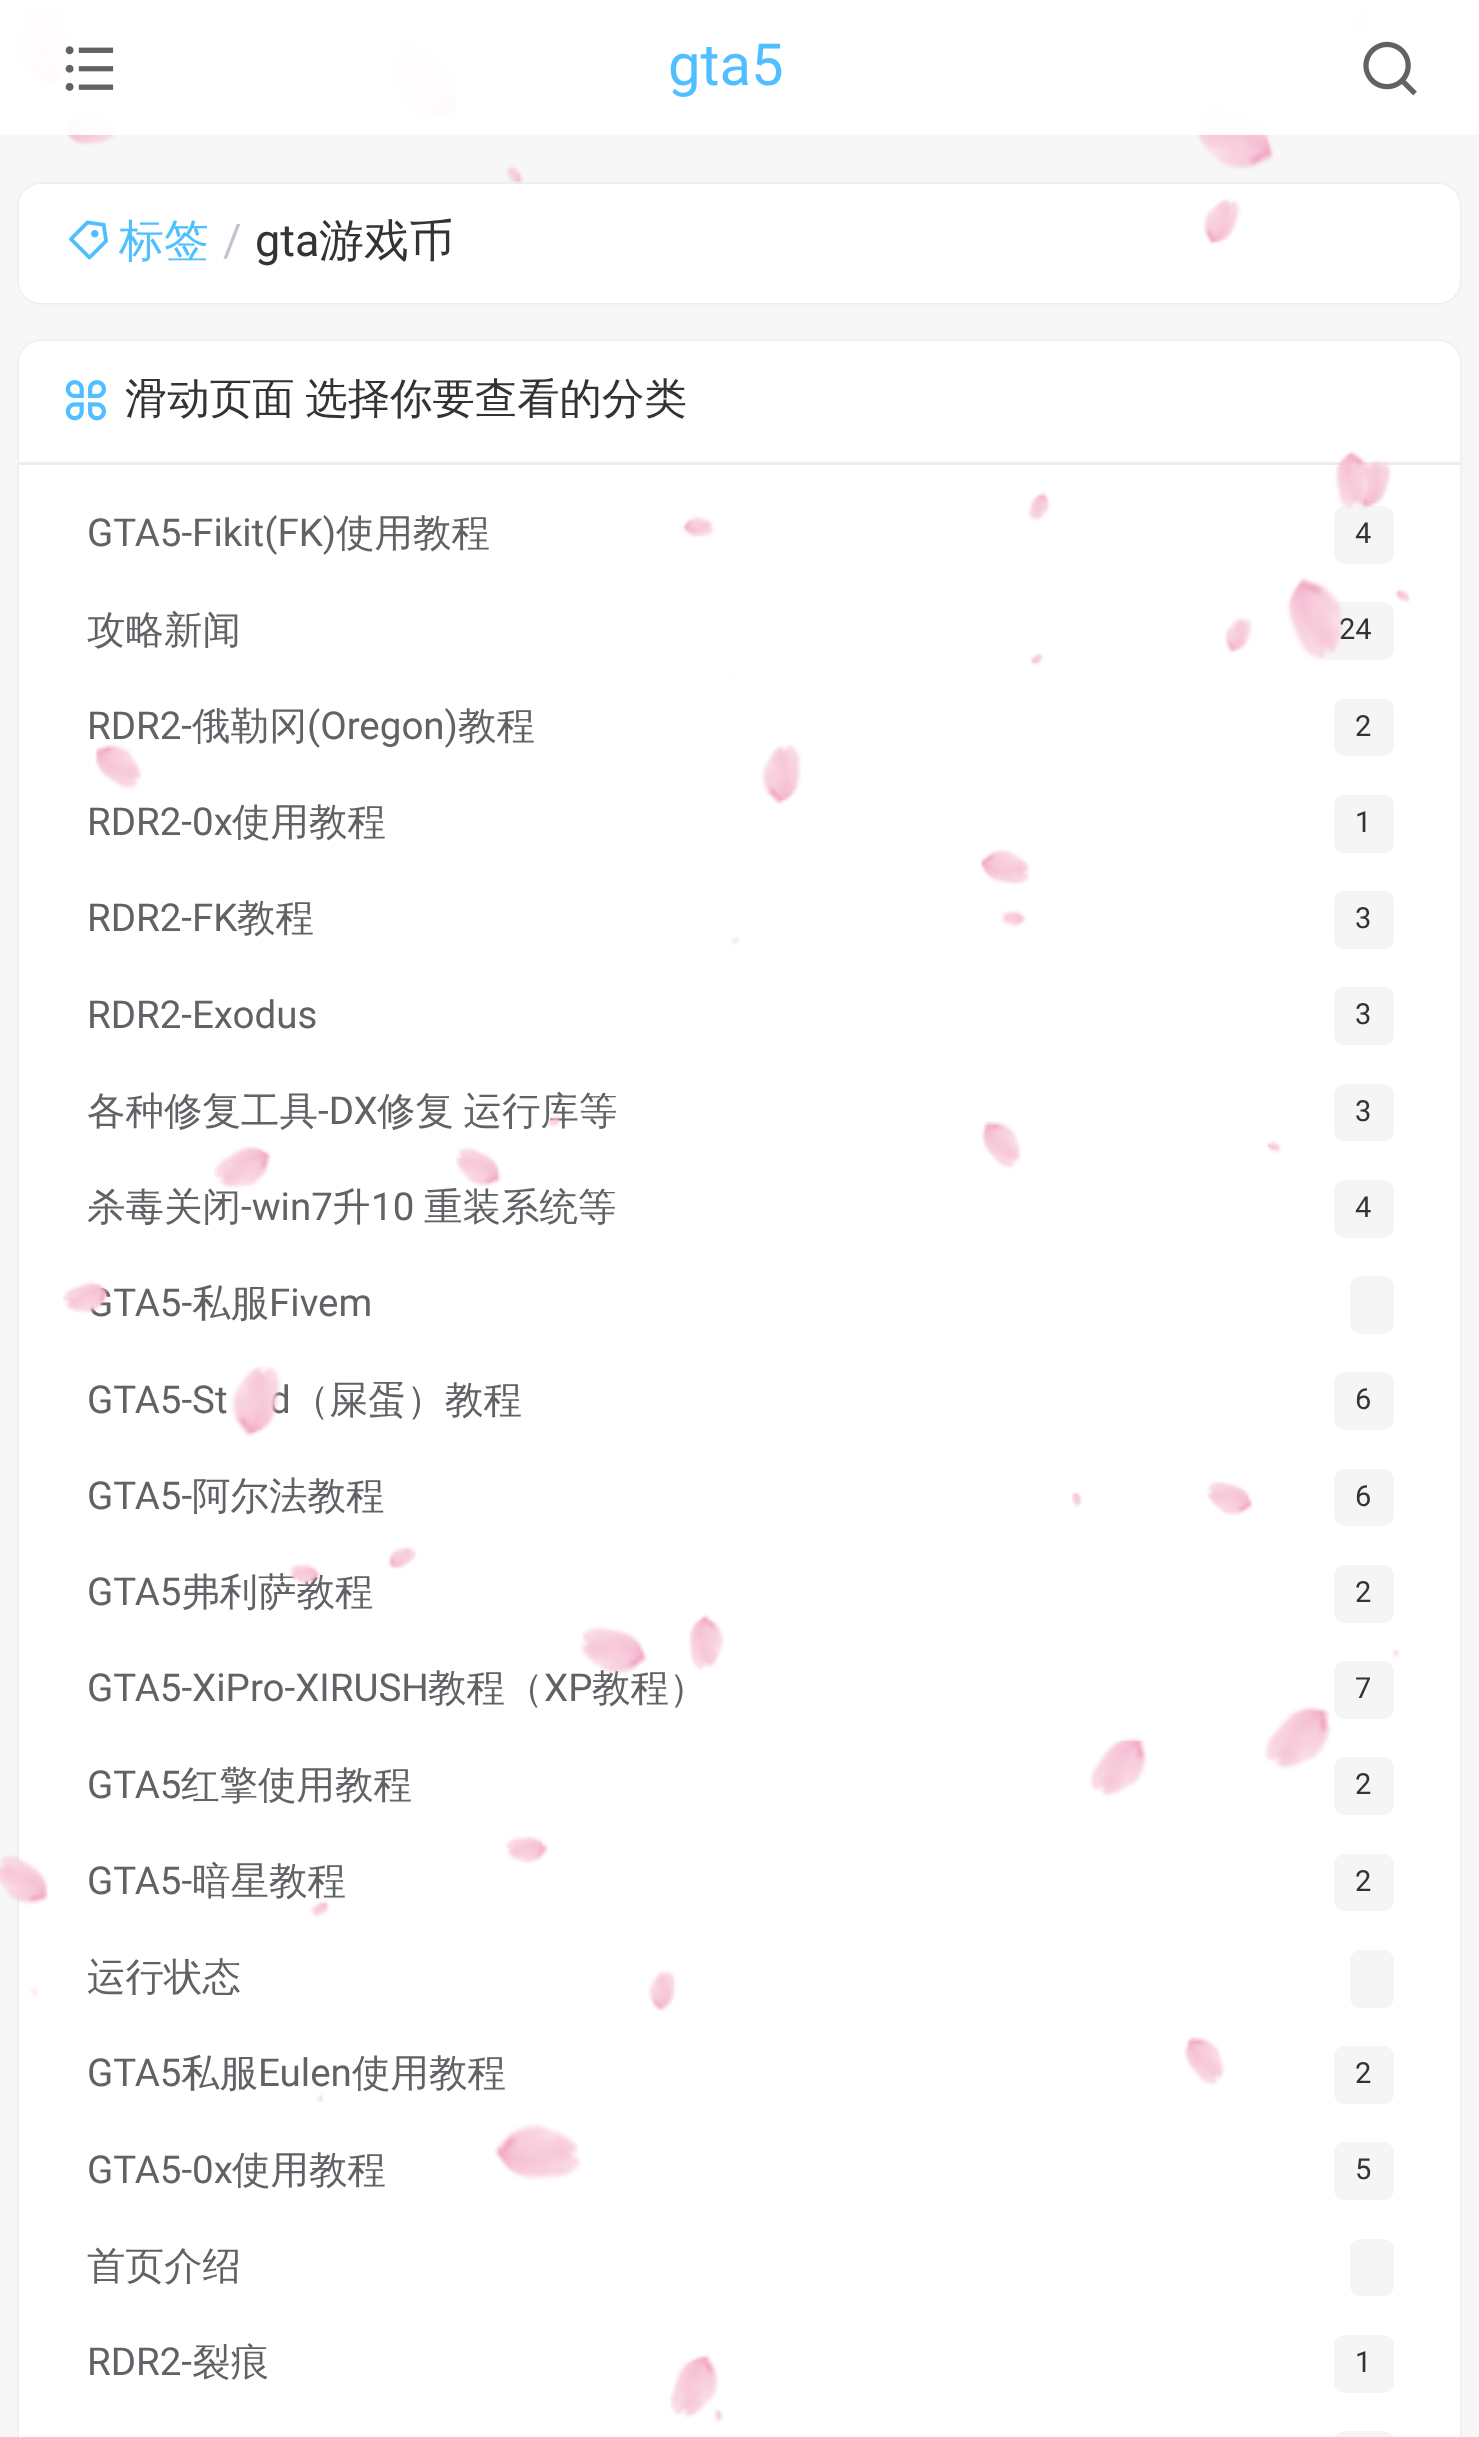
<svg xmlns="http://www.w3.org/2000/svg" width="1479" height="2437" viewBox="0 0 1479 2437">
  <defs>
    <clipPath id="clip1"><path d="M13 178H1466V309H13ZM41 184H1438C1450 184 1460 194 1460 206V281C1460 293 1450 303 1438 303H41C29 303 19 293 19 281V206C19 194 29 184 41 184Z" clip-rule="evenodd"/></clipPath>
    <clipPath id="clip2"><path d="M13 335H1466V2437H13ZM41 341H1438C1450 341 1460 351 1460 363V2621C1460 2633 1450 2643 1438 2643H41C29 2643 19 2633 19 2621V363C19 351 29 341 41 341Z" clip-rule="evenodd"/></clipPath>
  </defs>
  <rect width="100%" height="100%" fill="#f7f7f7"/>
  <g clip-path="url(#clip1)">
    <rect x="19" y="184" width="1441" height="119" rx="22" fill="#0000001a" filter="blur(1.5px)"/>
  </g>
  <rect x="19" y="184" width="1441" height="119" rx="22" fill="#fffffff0"/>
  <image x="69" y="220" width="39" height="40" href="img/4.png"/>
  <g clip-path="url(#clip2)">
    <rect x="19" y="341" width="1441" height="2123" rx="22" fill="#0000001a" filter="blur(1.5px)"/>
  </g>
  <rect x="19" y="341" width="1441" height="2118" rx="22" fill="#fffffff0"/>
  <path d="M19 462h1441v3H19z" fill="#ebeef5"/>
  <image x="65" y="380" width="41" height="41" href="img/5.png"/>
  <rect x="1334" y="506" width="60" height="58" rx="11" fill="#f5f5f5"/>
  <rect x="1317" y="602" width="77" height="58" rx="11" fill="#f5f5f5"/>
  <rect x="1334" y="699" width="60" height="57" rx="11" fill="#f5f5f5"/>
  <rect x="1334" y="795" width="60" height="58" rx="11" fill="#f5f5f5"/>
  <rect x="1334" y="891" width="60" height="58" rx="11" fill="#f5f5f5"/>
  <rect x="1334" y="987" width="60" height="58" rx="11" fill="#f5f5f5"/>
  <rect x="1334" y="1084" width="60" height="57" rx="11" fill="#f5f5f5"/>
  <rect x="1334" y="1180" width="60" height="58" rx="11" fill="#f5f5f5"/>
  <rect x="1350" y="1276" width="44" height="58" rx="11" fill="#f5f5f5"/>
  <rect x="1334" y="1372" width="60" height="58" rx="11" fill="#f5f5f5"/>
  <rect x="1334" y="1469" width="60" height="57" rx="11" fill="#f5f5f5"/>
  <rect x="1334" y="1565" width="60" height="58" rx="11" fill="#f5f5f5"/>
  <rect x="1334" y="1661" width="60" height="58" rx="11" fill="#f5f5f5"/>
  <rect x="1334" y="1757" width="60" height="58" rx="11" fill="#f5f5f5"/>
  <rect x="1334" y="1854" width="60" height="57" rx="11" fill="#f5f5f5"/>
  <rect x="1350" y="1950" width="44" height="58" rx="11" fill="#f5f5f5"/>
  <rect x="1334" y="2046" width="60" height="58" rx="11" fill="#f5f5f5"/>
  <rect x="1334" y="2142" width="60" height="58" rx="11" fill="#f5f5f5"/>
  <rect x="1350" y="2239" width="44" height="57" rx="11" fill="#f5f5f5"/>
  <rect x="1334" y="2335" width="60" height="58" rx="11" fill="#f5f5f5"/>
  <rect x="1334" y="2431" width="60" height="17" rx="11" fill="#f5f5f5"/>
  <text x="119" y="256" font-family="WenQuanYi Zen Hei" font-size="45" font-weight="500" fill="#50bfff">标签</text>
  <text x="223" y="256" font-family="Roboto" font-size="45" fill="#c0c4cc">/</text>
  <text x="255" y="256" font-family="Roboto" font-size="45" fill="#333">gta</text>
  <text x="319" y="256" font-family="WenQuanYi Zen Hei" font-size="45" font-weight="500" fill="#333">游戏币</text>
  <text x="125" y="413" word-spacing="-2" font-family="WenQuanYi Zen Hei" font-size="42.4" font-weight="500" fill="#333">滑动页面 选择你要查看的分类</text>
  <text x="87" y="546" font-family="Roboto" font-size="38.5" fill="#606266">GTA5-Fikit(FK)</text>
  <text x="336" y="546" font-family="WenQuanYi Zen Hei" font-size="38.5" font-weight="500" fill="#606266">使用教程</text>
  <text x="1355" y="543" font-family="Roboto" font-size="29" fill="#333">4</text>
  <text x="87" y="643" font-family="WenQuanYi Zen Hei" font-size="38.5" font-weight="500" fill="#606266">攻略新闻</text>
  <text x="1339" y="639" font-family="Roboto" font-size="29" fill="#333">24</text>
  <text x="87" y="739" font-family="Roboto" font-size="38.5" fill="#606266">RDR2-</text>
  <text x="192" y="739" font-family="WenQuanYi Zen Hei" font-size="38.5" font-weight="500" fill="#606266">俄勒冈</text>
  <text x="307" y="739" font-family="Roboto" font-size="38.5" fill="#606266">(Oregon)</text>
  <text x="458" y="739" font-family="WenQuanYi Zen Hei" font-size="38.5" font-weight="500" fill="#606266">教程</text>
  <text x="1355" y="736" font-family="Roboto" font-size="29" fill="#333">2</text>
  <text x="87" y="835" font-family="Roboto" font-size="38.5" fill="#606266">RDR2-0x</text>
  <text x="232" y="835" font-family="WenQuanYi Zen Hei" font-size="38.5" font-weight="500" fill="#606266">使用教程</text>
  <text x="1355" y="832" font-family="Roboto" font-size="29" fill="#333">1</text>
  <text x="87" y="931" font-family="Roboto" font-size="38.5" fill="#606266">RDR2-FK</text>
  <text x="237" y="931" font-family="WenQuanYi Zen Hei" font-size="38.5" font-weight="500" fill="#606266">教程</text>
  <text x="1355" y="928" font-family="Roboto" font-size="29" fill="#333">3</text>
  <text x="87" y="1028" font-family="Roboto" font-size="38.5" fill="#606266">RDR2-Exodus</text>
  <text x="1355" y="1024" font-family="Roboto" font-size="29" fill="#333">3</text>
  <text x="87" y="1124" font-family="WenQuanYi Zen Hei" font-size="38.5" font-weight="500" fill="#606266">各种修复工具</text>
  <text x="318" y="1124" font-family="Roboto" font-size="38.5" fill="#606266">-DX</text>
  <text x="377" y="1124" word-spacing="-2" font-family="WenQuanYi Zen Hei" font-size="38.5" font-weight="500" fill="#606266">修复 运行库等</text>
  <text x="1355" y="1121" font-family="Roboto" font-size="29" fill="#333">3</text>
  <text x="87" y="1220" font-family="WenQuanYi Zen Hei" font-size="38.5" font-weight="500" fill="#606266">杀毒关闭</text>
  <text x="241" y="1220" font-family="Roboto" font-size="38.5" fill="#606266">-win7</text>
  <text x="332" y="1220" font-family="WenQuanYi Zen Hei" font-size="38.5" font-weight="500" fill="#606266">升</text>
  <text x="371" y="1220" font-family="Roboto" font-size="38.5" fill="#606266">10</text>
  <text x="424" y="1220" font-family="WenQuanYi Zen Hei" font-size="38.5" font-weight="500" fill="#606266">重装系统等</text>
  <text x="1355" y="1217" font-family="Roboto" font-size="29" fill="#333">4</text>
  <text x="87" y="1316" font-family="Roboto" font-size="38.5" fill="#606266">GTA5-</text>
  <text x="192" y="1316" font-family="WenQuanYi Zen Hei" font-size="38.5" font-weight="500" fill="#606266">私服</text>
  <g font-family="Roboto" font-size="38.5" fill="#606266">
    <text x="269" y="1316">Fivem</text>
    <text x="87" y="1413">GTA5-St</text>
    <text x="269" y="1413">d</text>
  </g>
  <text x="291" y="1413" font-family="WenQuanYi Zen Hei" font-size="38.5" font-weight="500" fill="#606266">（屎蛋）教程</text>
  <text x="1355" y="1409" font-family="Roboto" font-size="29" fill="#333">6</text>
  <text x="87" y="1509" font-family="Roboto" font-size="38.5" fill="#606266">GTA5-</text>
  <text x="192" y="1509" font-family="WenQuanYi Zen Hei" font-size="38.5" font-weight="500" fill="#606266">阿尔法教程</text>
  <text x="1355" y="1506" font-family="Roboto" font-size="29" fill="#333">6</text>
  <text x="87" y="1605" font-family="Roboto" font-size="38.5" fill="#606266">GTA5</text>
  <text x="181" y="1605" font-family="WenQuanYi Zen Hei" font-size="38.5" font-weight="500" fill="#606266">弗利萨教程</text>
  <text x="1355" y="1602" font-family="Roboto" font-size="29" fill="#333">2</text>
  <text x="87" y="1701" font-family="Roboto" font-size="38.5" fill="#606266">GTA5-XiPro-XIRUSH</text>
  <text x="428" y="1701" font-family="WenQuanYi Zen Hei" font-size="38.5" font-weight="500" fill="#606266">教程（</text>
  <text x="544" y="1701" font-family="Roboto" font-size="38.5" fill="#606266">XP</text>
  <text x="592" y="1701" font-family="WenQuanYi Zen Hei" font-size="38.5" font-weight="500" fill="#606266">教程）</text>
  <text x="1355" y="1698" font-family="Roboto" font-size="29" fill="#333">7</text>
  <text x="87" y="1798" font-family="Roboto" font-size="38.5" fill="#606266">GTA5</text>
  <text x="181" y="1798" font-family="WenQuanYi Zen Hei" font-size="38.5" font-weight="500" fill="#606266">红擎使用教程</text>
  <text x="1355" y="1794" font-family="Roboto" font-size="29" fill="#333">2</text>
  <text x="87" y="1894" font-family="Roboto" font-size="38.5" fill="#606266">GTA5-</text>
  <text x="192" y="1894" font-family="WenQuanYi Zen Hei" font-size="38.5" font-weight="500" fill="#606266">暗星教程</text>
  <text x="1355" y="1891" font-family="Roboto" font-size="29" fill="#333">2</text>
  <text x="87" y="1990" font-family="WenQuanYi Zen Hei" font-size="38.5" font-weight="500" fill="#606266">运行状态</text>
  <text x="87" y="2086" font-family="Roboto" font-size="38.5" fill="#606266">GTA5</text>
  <text x="181" y="2086" font-family="WenQuanYi Zen Hei" font-size="38.5" font-weight="500" fill="#606266">私服</text>
  <text x="258" y="2086" font-family="Roboto" font-size="38.5" fill="#606266">Eulen</text>
  <text x="352" y="2086" font-family="WenQuanYi Zen Hei" font-size="38.5" font-weight="500" fill="#606266">使用教程</text>
  <text x="1355" y="2083" font-family="Roboto" font-size="29" fill="#333">2</text>
  <text x="87" y="2183" font-family="Roboto" font-size="38.5" fill="#606266">GTA5-0x</text>
  <text x="232" y="2183" font-family="WenQuanYi Zen Hei" font-size="38.5" font-weight="500" fill="#606266">使用教程</text>
  <text x="1355" y="2179" font-family="Roboto" font-size="29" fill="#333">5</text>
  <text x="87" y="2279" font-family="WenQuanYi Zen Hei" font-size="38.5" font-weight="500" fill="#606266">首页介绍</text>
  <text x="87" y="2375" font-family="Roboto" font-size="38.5" fill="#606266">RDR2-</text>
  <text x="192" y="2375" font-family="WenQuanYi Zen Hei" font-size="38.5" font-weight="500" fill="#606266">裂痕</text>
  <text x="1355" y="2372" font-family="Roboto" font-size="29" fill="#333">1</text>
  <image x="0" y="2" width="1411" height="2421" href="img/1.png"/>
  <path d="M0 0h1479v135H0z" fill="#fffffff0"/>
  <text x="668" y="85" font-family="Roboto" font-size="58" fill="#50bfff">gta5</text>
  <image x="1363" y="41" width="54" height="55" href="img/3.png"/>
  <image x="65" y="46" width="49" height="45" href="img/2.png"/>
</svg>
